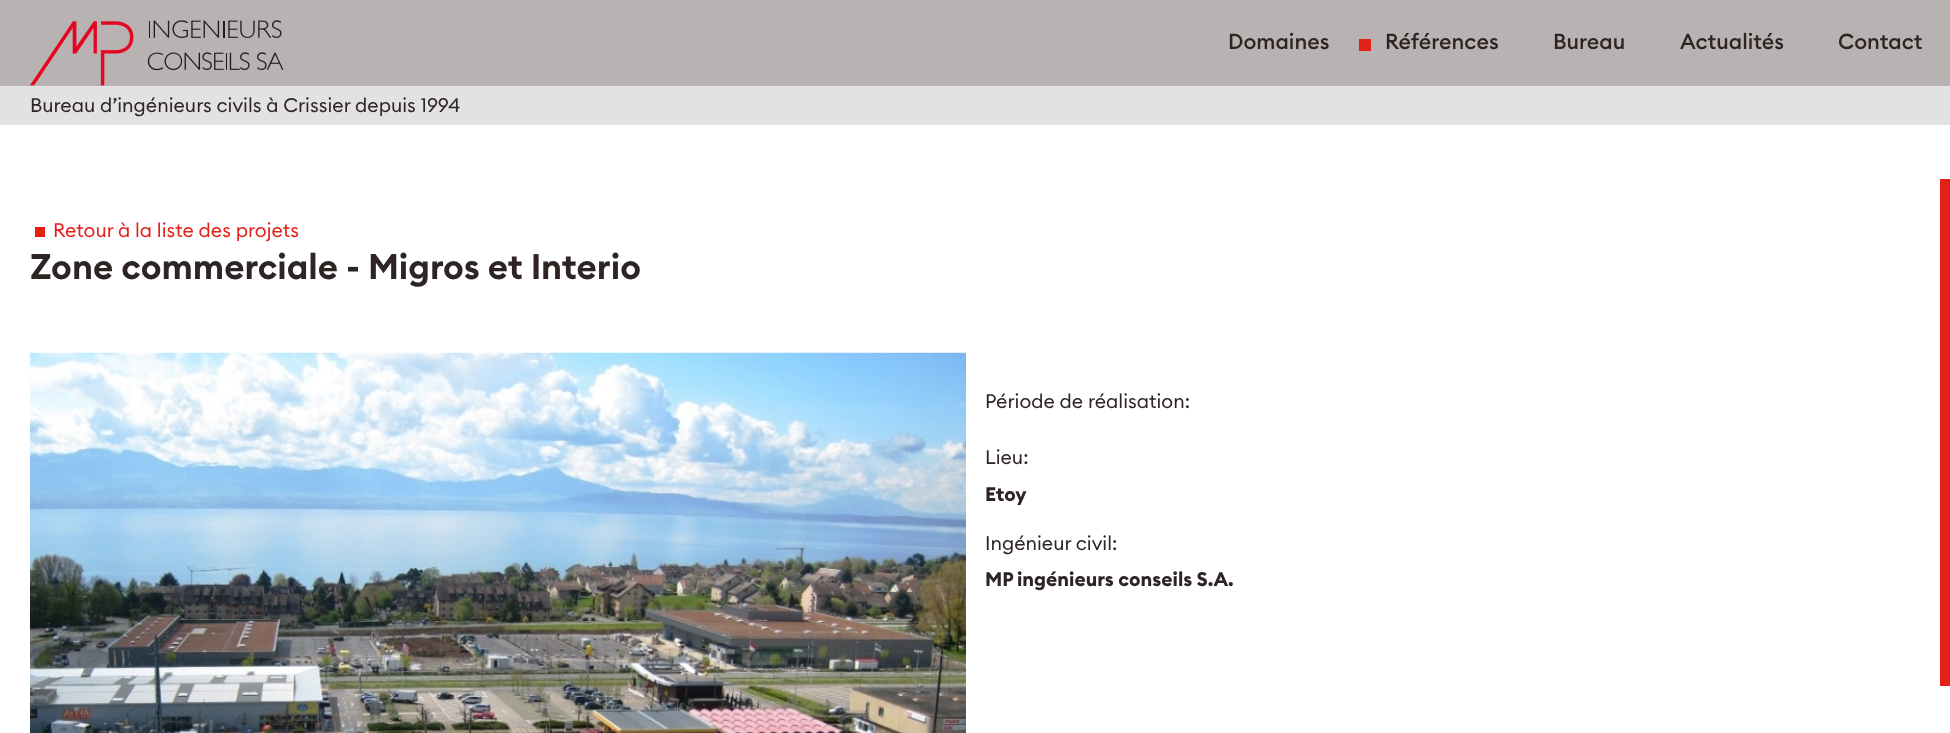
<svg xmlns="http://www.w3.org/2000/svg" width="1950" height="733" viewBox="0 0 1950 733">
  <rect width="100%" height="100%" fill="#fff"/>
  <path d="M0 0h1950v86H0z" fill="#b9b2b2"/>
  <image x="30" y="20" width="254" height="66" href="img/1.png"/>
  <path d="M1359 39h12v12H1359z" fill="#e32119"/>
  <path d="M0 86h1950v39H0z" fill="#e2e2e2"/>
  <path d="M35 227h10v10H35z" fill="#e32119"/>
  <image x="30" y="352" width="936" height="381" href="img/2.png"/>
  <path d="M1940 179h10v507H1940z" fill="#e32119"/>
  <g font-family="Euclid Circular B" font-size="21.5" font-weight="500" fill="#2e2424">
    <text x="1228" y="49">Domaines</text>
    <text x="1385" y="49">Références</text>
    <text x="1553" y="49">Bureau</text>
    <text x="1680" y="49">Actualités</text>
    <text x="1838" y="49">Contact</text>
  </g>
  <text x="30" y="112" font-family="Euclid Circular B" font-size="19.5" fill="#2e2424">Bureau d’ingénieurs civils à Crissier depuis 1994</text>
  <text x="53" y="237" font-family="Euclid Circular B" font-size="19.5" fill="#e32119">Retour à la liste des projets</text>
  <text x="30" y="279" font-family="Euclid Circular B" font-size="35.1" font-weight="600" fill="#2e2424">Zone commerciale - Migros et Interio</text>
  <g font-family="Euclid Circular B" font-size="19.5" fill="#2e2424">
    <text x="985" y="408">Période de réalisation:</text>
    <text x="985" y="464">Lieu:</text>
  </g>
  <text x="985" y="501" font-family="Euclid Circular B" font-size="19.5" font-weight="bold" fill="#2e2424">Etoy</text>
  <text x="985" y="550" font-family="Euclid Circular B" font-size="19.5" fill="#2e2424">Ingénieur civil:</text>
  <g font-family="Euclid Circular B" font-size="19.5" font-weight="bold" fill="#2e2424">
    <text x="985" y="586">MP</text>
    <text x="1017" y="586">ingénieurs conseils S.A.</text>
  </g>
</svg>
